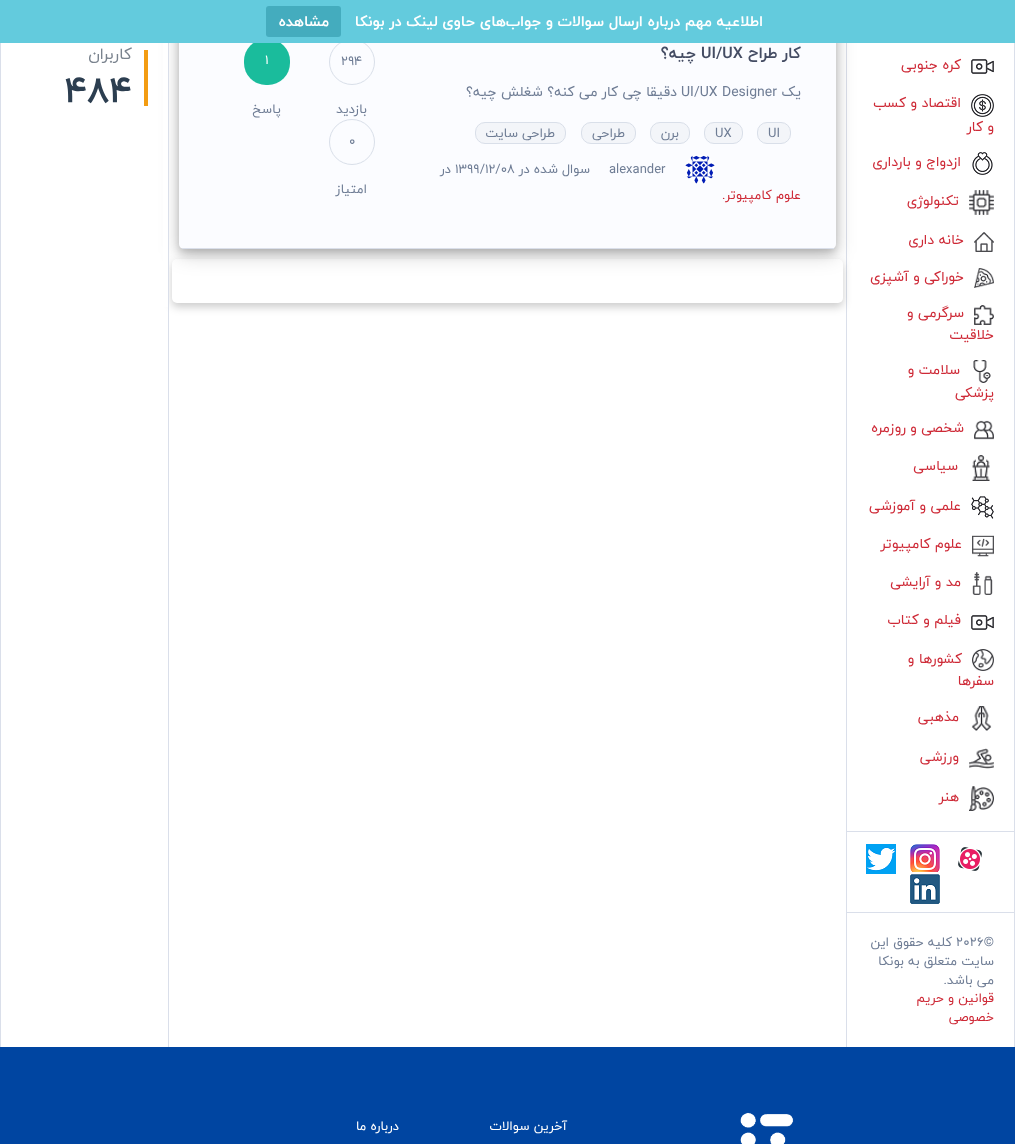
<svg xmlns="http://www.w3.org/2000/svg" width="1015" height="1144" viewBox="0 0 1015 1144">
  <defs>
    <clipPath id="clip1"><path d="M0 0h1015v1047H0z"/></clipPath>
  </defs>
  <rect width="100%" height="100%" fill="#fff"/>
  <path d="M0 1047h1015v97H0z" fill="#0045a1"/>
  <g clip-path="url(#clip1)">
    <rect x="846.5" y="-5.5" width="168" height="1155" rx="4.5" fill="none" stroke="#dadfea"/>
  </g>
  <rect x="172" y="263" width="671" height="44" rx="5" fill="#00000033" filter="blur(4px)"/>
  <rect x="172" y="259" width="671" height="44" rx="5" fill="#fff"/>
  <rect x="179" y="25" width="657" height="230" rx="5" fill="#00000030" filter="blur(10px)"/>
  <rect x="179" y="23" width="657" height="230" rx="5" fill="#00000033" filter="blur(4px)"/>
  <rect x="179" y="19" width="657" height="230" rx="5" fill="#fbfcff"/>
  <circle cx="352" cy="62" r="22.5" fill="none" stroke="#d9dfe9"/>
  <rect x="244" y="39" width="46" height="46" rx="22" fill="#1abc9c"/>
  <path d="M163 43h5v264H163z" fill="#fff"/>
  <g clip-path="url(#clip1)">
    <rect x="0.5" y="-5.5" width="168" height="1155" rx="4.5" fill="none" stroke="#dadfea"/>
  </g>
  <path d="M0 0h1015v43H0z" fill="#63cbdd"/>
  <rect x="266" y="6" width="75" height="31" rx="3" fill="#44acbe"/>
  <path d="M847 831h167v1H847z" fill="#dadfea"/>
  <image x="971" y="59" width="23" height="15" href="img/1.png"/>
  <image x="971" y="94" width="23" height="23" href="img/2.png"/>
  <image x="972" y="152" width="21" height="23" href="img/3.png"/>
  <image x="969" y="190" width="25" height="25" href="img/4.png"/>
  <image x="974" y="232" width="20" height="20" href="img/5.png"/>
  <image x="974" y="268" width="20" height="20" href="img/6.png"/>
  <image x="974" y="305" width="20" height="20" href="img/7.png"/>
  <image x="973" y="360" width="18" height="23" href="img/8.png"/>
  <image x="974" y="420" width="20" height="20" href="img/9.png"/>
  <image x="972" y="455" width="18" height="26" href="img/10.png"/>
  <image x="971" y="496" width="23" height="23" href="img/11.png"/>
  <image x="972" y="535" width="22" height="22" href="img/12.png"/>
  <image x="972" y="572" width="21" height="23" href="img/13.png"/>
  <image x="971" y="615" width="23" height="15" href="img/1.png"/>
  <image x="972" y="649" width="22" height="22" href="img/14.png"/>
  <image x="971" y="706" width="21" height="25" href="img/15.png"/>
  <image x="969" y="748" width="25" height="21" href="img/16.png"/>
  <image x="969" y="786" width="25" height="25" href="img/17.png"/>
  <path d="M847 912h167v1H847z" fill="#dadfea"/>
  <image x="958" y="847" width="24" height="24" href="img/18.png"/>
  <image x="910" y="844" width="30" height="30" href="img/19.png"/>
  <image x="866" y="844" width="30" height="30" href="img/20.png"/>
  <rect x="910" y="872" width="30" height="30" rx="3" fill="#fff"/>
  <image x="910" y="874" width="30" height="30" href="img/21.png"/>
  <path d="M182 248h652v1H182z" fill="#dadfea"/>
  <rect x="757.5" y="122.5" width="33" height="21" rx="9.5" fill="#f3f5f9" stroke="#d9dfe9"/>
  <rect x="704.5" y="122.5" width="38" height="21" rx="9.5" fill="#f3f5f9" stroke="#d9dfe9"/>
  <rect x="650.5" y="122.5" width="39" height="21" rx="9.5" fill="#f3f5f9" stroke="#d9dfe9"/>
  <rect x="581.5" y="122.5" width="54" height="21" rx="9.5" fill="#f3f5f9" stroke="#d9dfe9"/>
  <rect x="475.5" y="122.5" width="90" height="21" rx="9.5" fill="#f3f5f9" stroke="#d9dfe9"/>
  <image x="685" y="155" width="30" height="29" href="img/22.png"/>
  <circle cx="352" cy="142" r="22.5" fill="none" stroke="#d9dfe9"/>
  <path d="M144 50h4v56H144z" fill="#f39c12"/>
  <image x="740" y="1112" width="54" height="32" href="img/23.png"/>
  <g font-family="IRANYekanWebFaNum" font-size="15" font-weight="bold" direction="rtl" fill="#fff">
    <text x="763" y="26">اطلاعیه مهم درباره ارسال سوالات و جواب‌های حاوی لینک در بونکا</text>
    <text x="329" y="26">مشاهده</text>
  </g>
  <g font-family="IRANYekanWebFaNum" font-size="14" direction="rtl" fill="#ce2a37">
    <text x="961" y="69">کره جنوبی</text>
    <text x="961" y="107">اقتصاد و کسب</text>
    <text x="994" y="131">و کار</text>
    <text x="961" y="166">ازدواج و بارداری</text>
    <text x="959" y="205">تکنولوژی</text>
    <text x="964" y="244">خانه داری</text>
    <text x="964" y="281">خوراکی و آشپزی</text>
    <text x="964" y="317">سرگرمی و</text>
    <text x="994" y="339">خلاقیت</text>
    <text x="960" y="374">سلامت و</text>
    <text x="994" y="397">پزشکی</text>
    <text x="964" y="432">شخصی و روزمره</text>
    <text x="958" y="470">سیاسی</text>
    <text x="961" y="510">علمی و آموزشی</text>
    <text x="962" y="548">علوم کامپیوتر</text>
    <text x="961" y="586">مد و آرایشی</text>
    <text x="961" y="624">فیلم و کتاب</text>
    <text x="962" y="663">کشورها و</text>
    <text x="994" y="685">سفرها</text>
    <text x="959" y="721">مذهبی</text>
    <text x="959" y="761">ورزشی</text>
    <text x="959" y="801">هنر</text>
  </g>
  <text x="956" y="946" font-family="IRANYekanWebFaNum" font-size="13" fill="#6f7d95">2026©</text>
  <g font-family="IRANYekanWebFaNum" font-size="13" direction="rtl" fill="#6f7d95">
    <text x="952" y="946">کلیه حقوق این</text>
    <text x="994" y="965">سایت متعلق به بونکا</text>
    <text x="994" y="984">می باشد.</text>
  </g>
  <g font-family="IRANYekanWebFaNum" font-size="13" direction="rtl" fill="#ce2a37">
    <text x="994" y="1002">قوانین و حریم</text>
    <text x="994" y="1021">خصوصی</text>
  </g>
  <text x="801" y="58" font-family="IRANYekanWebFaNum" font-size="16" font-weight="bold" direction="rtl" fill="#444c63">کار طراح</text>
  <text x="701" y="58" font-family="IRANYekanWebFaNum" font-size="16" font-weight="bold" fill="#444c63">UI/UX</text>
  <text x="696" y="58" font-family="IRANYekanWebFaNum" font-size="16" font-weight="bold" direction="rtl" fill="#444c63">چیه؟</text>
  <text x="801" y="96" font-family="IRANYekanWebFaNum" font-size="14" direction="rtl" fill="#6f7d95">یک</text>
  <text x="681" y="96" font-family="IRANYekanWebFaNum" font-size="14" fill="#6f7d95">UI/UX Designer</text>
  <text x="677" y="96" font-family="IRANYekanWebFaNum" font-size="14" direction="rtl" fill="#6f7d95">دقیقا چی کار می کنه؟ شغلش چیه؟</text>
  <g font-family="IRANYekanWebFaNum" font-size="13" fill="#6f7d95">
    <text x="768" y="137">UI</text>
    <text x="715" y="137">UX</text>
  </g>
  <g font-family="IRANYekanWebFaNum" font-size="13" direction="rtl" fill="#6f7d95">
    <text x="679" y="137">برن</text>
    <text x="625" y="137">طراحی</text>
    <text x="555" y="137">طراحی سایت</text>
  </g>
  <text x="609" y="173" font-family="IRANYekanWebFaNum" font-size="13" fill="#6f7d95">alexander</text>
  <text x="590" y="173" font-family="IRANYekanWebFaNum" font-size="13" direction="rtl" fill="#6f7d95">سوال شده در</text>
  <text x="455" y="173" font-family="IRANYekanWebFaNum" font-size="13" fill="#6f7d95">۱۳۹۹/۱۲/۰۸</text>
  <text x="451" y="173" font-family="IRANYekanWebFaNum" font-size="13" direction="rtl" fill="#6f7d95">در</text>
  <text x="801" y="199" font-family="IRANYekanWebFaNum" font-size="13" direction="rtl" fill="#ce2a37">علوم کامپیوتر.</text>
  <text x="341" y="65" font-family="IRANYekanWebFaNum" font-size="13" fill="#6f7d95">294</text>
  <text x="367" y="113" font-family="IRANYekanWebFaNum" font-size="13" direction="rtl" fill="#6f7d95">بازدید</text>
  <text x="265" y="64" font-family="IRANYekanWebFaNum" font-size="13" fill="#fff">1</text>
  <text x="281" y="113" font-family="IRANYekanWebFaNum" font-size="13" direction="rtl" fill="#6f7d95">پاسخ</text>
  <text x="349" y="145" font-family="IRANYekanWebFaNum" font-size="13" fill="#6f7d95">0</text>
  <text x="367" y="193" font-family="IRANYekanWebFaNum" font-size="13" direction="rtl" fill="#6f7d95">امتیاز</text>
  <text x="132" y="59" font-family="IRANYekanWebFaNum" font-size="16" direction="rtl" fill="#7a838e">کاربران</text>
  <text x="65" y="102" font-family="IRANYekanWebFaNum" font-size="36" font-weight="bold" fill="#2c3e50">484</text>
  <g font-family="IRANYekanWebFaNum" font-size="13" direction="rtl" fill="#fff">
    <text x="567" y="1130">آخرین سوالات</text>
    <text x="399" y="1130">درباره ما</text>
  </g>
</svg>
